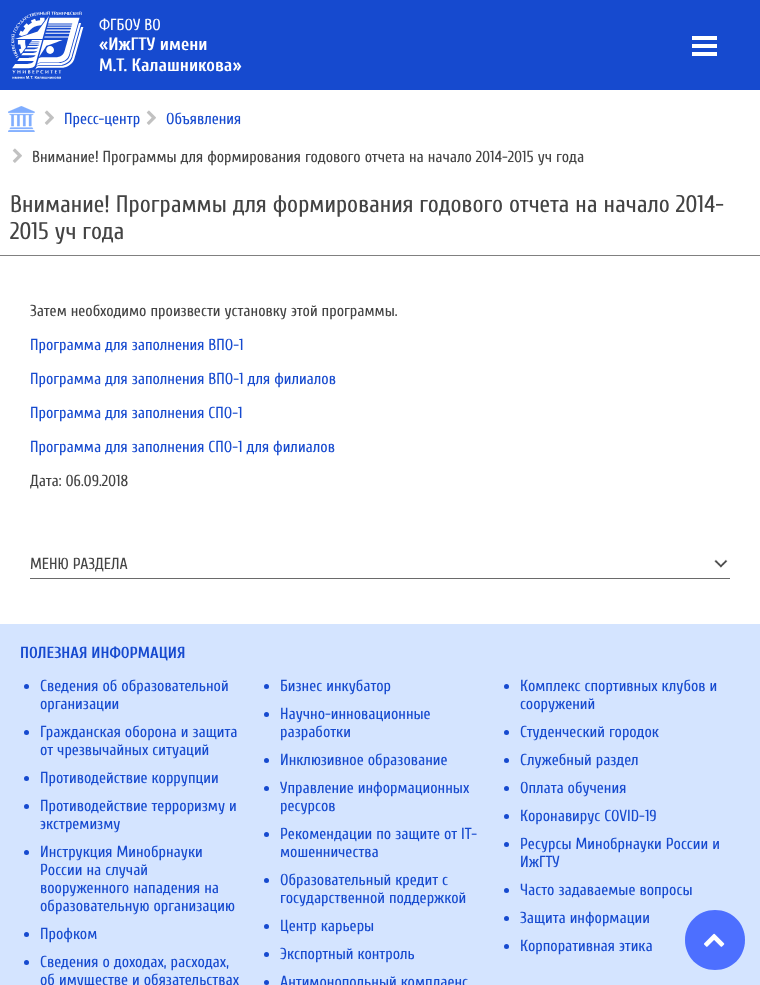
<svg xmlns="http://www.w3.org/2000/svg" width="760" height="985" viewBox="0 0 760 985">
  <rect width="100%" height="100%" fill="#fff"/>
  <path d="M0 0h760v90H0z" fill="#164acf"/>
  <image x="11" y="11" width="73" height="68" href="img/1.png"/>
  <path d="M692 36h25v4H692z" fill="#fff"/>
  <path d="M692 44h25v4H692z" fill="#fff"/>
  <path d="M692 52h25v4H692z" fill="#fff"/>
  <image x="8" y="106" width="27" height="26" href="img/2.png"/>
  <image x="44" y="110" width="10" height="15" href="img/3.png"/>
  <image x="146" y="110" width="10" height="15" href="img/3.png"/>
  <image x="12" y="148" width="10" height="15" href="img/3.png"/>
  <path d="M0 255h760v1H0z" fill="#808080"/>
  <path d="M30 578h700v1H30z" fill="#6a6a6a"/>
  <image x="714" y="559" width="14" height="9" href="img/4.png"/>
  <path d="M0 624h760v361H0z" fill="#d4e4ff"/>
  <circle cx="26.5" cy="686.5" r="2.5" fill="#164acf"/>
  <circle cx="26.5" cy="732.5" r="2.5" fill="#164acf"/>
  <circle cx="26.5" cy="778.5" r="2.5" fill="#164acf"/>
  <circle cx="26.5" cy="806.5" r="2.5" fill="#164acf"/>
  <circle cx="26.5" cy="852.5" r="2.5" fill="#164acf"/>
  <circle cx="26.5" cy="934.5" r="2.5" fill="#164acf"/>
  <circle cx="26.5" cy="962.5" r="2.5" fill="#164acf"/>
  <circle cx="266.5" cy="686.5" r="2.5" fill="#164acf"/>
  <circle cx="266.5" cy="714.5" r="2.5" fill="#164acf"/>
  <circle cx="266.5" cy="760.5" r="2.5" fill="#164acf"/>
  <circle cx="266.5" cy="788.5" r="2.5" fill="#164acf"/>
  <circle cx="266.5" cy="834.5" r="2.5" fill="#164acf"/>
  <circle cx="266.5" cy="880.5" r="2.5" fill="#164acf"/>
  <circle cx="266.5" cy="926.5" r="2.5" fill="#164acf"/>
  <circle cx="266.5" cy="954.5" r="2.5" fill="#164acf"/>
  <circle cx="266.5" cy="982.5" r="2.5" fill="#164acf"/>
  <circle cx="506.5" cy="686.5" r="2.5" fill="#164acf"/>
  <circle cx="506.5" cy="732.5" r="2.5" fill="#164acf"/>
  <circle cx="506.5" cy="760.5" r="2.5" fill="#164acf"/>
  <circle cx="506.5" cy="788.5" r="2.5" fill="#164acf"/>
  <circle cx="506.5" cy="816.5" r="2.5" fill="#164acf"/>
  <circle cx="506.5" cy="844.5" r="2.5" fill="#164acf"/>
  <circle cx="506.5" cy="890.5" r="2.5" fill="#164acf"/>
  <circle cx="506.5" cy="918.5" r="2.5" fill="#164acf"/>
  <circle cx="506.5" cy="946.5" r="2.5" fill="#164acf"/>
  <path d="M685 940C685 923 698 910 715 910C732 910 745 923 745 940C745 957 732 970 715 970C698 970 685 957 685 940Z" fill="#4d6fff"/>
  <image x="704" y="933" width="21" height="14" href="img/5.png"/>
  <text x="99" y="30" font-family="Cuprum" font-size="16" fill="#fff">ФГБОУ ВО</text>
  <g font-family="Cuprum" font-size="18" font-weight="bold" fill="#fff">
    <text x="99" y="50">«ИжГТУ имени</text>
    <text x="99" y="71">М.Т. Калашникова»</text>
  </g>
  <g font-family="Cuprum" font-size="16" fill="#164acf">
    <text x="64" y="124">Пресс-центр</text>
    <text x="166" y="124">Объявления</text>
  </g>
  <text x="32" y="162" font-family="Cuprum" font-size="16" fill="#444">Внимание! Программы для формирования годового отчета на начало 2014-2015 уч года</text>
  <g font-family="Cuprum" font-size="24" fill="#444">
    <text x="10" y="212">Внимание! Программы для формирования годового отчета на начало 2014-</text>
    <text x="10" y="239">2015 уч года</text>
  </g>
  <text x="30" y="316" font-family="Cuprum" font-size="16" fill="#444">Затем необходимо произвести установку этой программы.</text>
  <g font-family="Cuprum" font-size="16" fill="#164acf">
    <text x="30" y="350">Программа для заполнения ВПО-1</text>
    <text x="30" y="384">Программа для заполнения ВПО-1 для филиалов</text>
    <text x="30" y="418">Программа для заполнения СПО-1</text>
    <text x="30" y="452">Программа для заполнения СПО-1 для филиалов</text>
  </g>
  <g font-family="Cuprum" font-size="16" fill="#444">
    <text x="30" y="486">Дата: 06.09.2018</text>
    <text x="30" y="569">МЕНЮ РАЗДЕЛА</text>
  </g>
  <text x="20" y="658" font-family="Cuprum" font-size="16" font-weight="bold" fill="#164acf">ПОЛЕЗНАЯ ИНФОРМАЦИЯ</text>
  <g font-family="Cuprum" font-size="16" fill="#164acf">
    <text x="40" y="691">Сведения об образовательной</text>
    <text x="40" y="709">организации</text>
    <text x="40" y="737">Гражданская оборона и защита</text>
    <text x="40" y="755">от чрезвычайных ситуаций</text>
    <text x="40" y="783">Противодействие коррупции</text>
    <text x="40" y="811">Противодействие терроризму и</text>
    <text x="40" y="829">экстремизму</text>
    <text x="40" y="857">Инструкция Минобрнауки</text>
    <text x="40" y="875">России на случай</text>
    <text x="40" y="893">вооруженного нападения на</text>
    <text x="40" y="911">образовательную организацию</text>
    <text x="40" y="939">Профком</text>
    <text x="40" y="967">Сведения о доходах, расходах,</text>
    <text x="40" y="985">об имуществе и обязательствах</text>
    <text x="280" y="691">Бизнес инкубатор</text>
    <text x="280" y="719">Научно-инновационные</text>
    <text x="280" y="737">разработки</text>
    <text x="280" y="765">Инклюзивное образование</text>
    <text x="280" y="793">Управление информационных</text>
    <text x="280" y="811">ресурсов</text>
    <text x="280" y="839">Рекомендации по защите от IT-</text>
    <text x="280" y="857">мошенничества</text>
    <text x="280" y="885">Образовательный кредит с</text>
    <text x="280" y="903">государственной поддержкой</text>
    <text x="280" y="931">Центр карьеры</text>
    <text x="280" y="959">Экспортный контроль</text>
    <text x="280" y="987">Антимонопольный комплаенс</text>
    <text x="520" y="691">Комплекс спортивных клубов и</text>
    <text x="520" y="709">сооружений</text>
    <text x="520" y="737">Студенческий городок</text>
    <text x="520" y="765">Служебный раздел</text>
    <text x="520" y="793">Оплата обучения</text>
    <text x="520" y="821">Коронавирус COVID-19</text>
    <text x="520" y="849">Ресурсы Минобрнауки России и</text>
    <text x="520" y="867">ИжГТУ</text>
    <text x="520" y="895">Часто задаваемые вопросы</text>
    <text x="520" y="923">Защита информации</text>
    <text x="520" y="951">Корпоративная этика</text>
  </g>
</svg>
